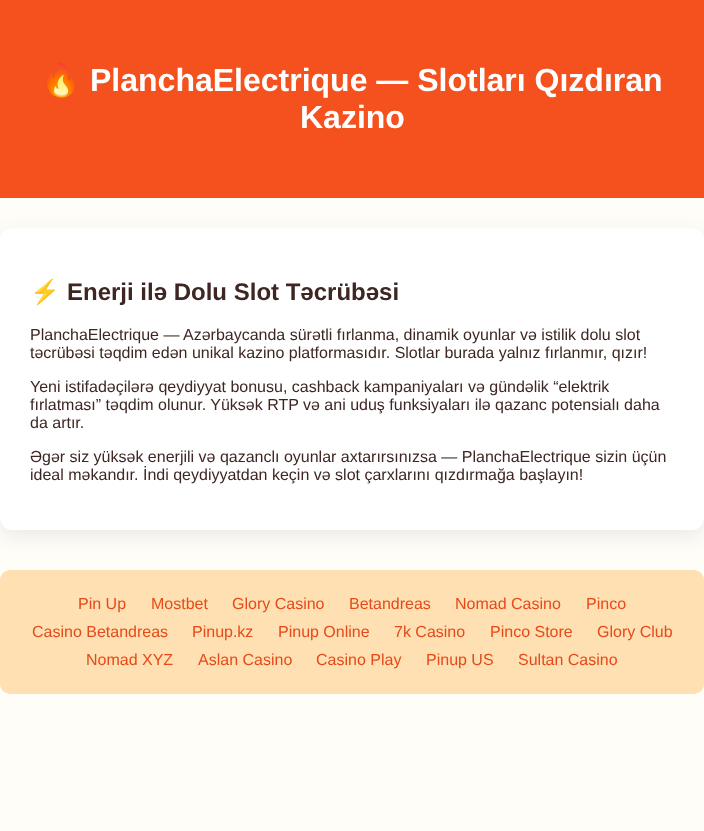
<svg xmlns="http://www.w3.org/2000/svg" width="704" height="831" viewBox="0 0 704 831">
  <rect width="100%" height="100%" fill="#fffdf7"/>
  <path d="M0 0h704v198H0z" fill="#f4511e"/>
  <rect y="234" width="704" height="302" rx="12" fill="#00000014" filter="blur(10px)"/>
  <rect y="228" width="704" height="302" rx="12" fill="#fff"/>
  <rect y="570" width="704" height="124" rx="10" fill="#ffe0b2"/>
  <text x="41" y="91" font-family="Noto Color Emoji" font-size="32" font-weight="bold" fill="#fff">🔥</text>
  <g font-family="Liberation Sans" font-size="32" font-weight="bold" fill="#fff">
    <text x="90" y="91">PlanchaElectrique — Slotları Qızdıran</text>
    <text x="300" y="128">Kazino</text>
  </g>
  <text x="30" y="300" font-family="Noto Color Emoji" font-size="24" font-weight="bold" fill="#3e2723">⚡</text>
  <text x="67" y="300" font-family="Liberation Sans" font-size="24" font-weight="bold" fill="#3e2723">Enerji ilə Dolu Slot Təcrübəsi</text>
  <g font-family="Liberation Sans" font-size="16" fill="#3e2723">
    <text x="30" y="340">PlanchaElectrique — Azərbaycanda sürətli fırlanma, dinamik oyunlar və istilik dolu slot</text>
    <text x="30" y="358">təcrübəsi təqdim edən unikal kazino platformasıdır. Slotlar burada yalnız fırlanmır, qızır!</text>
    <text x="30" y="392">Yeni istifadəçilərə qeydiyyat bonusu, cashback kampaniyaları və gündəlik “elektrik</text>
    <text x="30" y="410">fırlatması” təqdim olunur. Yüksək RTP və ani uduş funksiyaları ilə qazanc potensialı daha</text>
    <text x="30" y="428">da artır.</text>
    <text x="30" y="462">Əgər siz yüksək enerjili və qazanclı oyunlar axtarırsınızsa — PlanchaElectrique sizin üçün</text>
    <text x="30" y="480">ideal məkandır. İndi qeydiyyatdan keçin və slot çarxlarını qızdırmağa başlayın!</text>
  </g>
  <g font-family="Liberation Sans" font-size="16" fill="#e64a19">
    <text x="78" y="609">Pin Up</text>
    <text x="151" y="609">Mostbet</text>
    <text x="232" y="609">Glory Casino</text>
    <text x="349" y="609">Betandreas</text>
    <text x="455" y="609">Nomad Casino</text>
    <text x="586" y="609">Pinco</text>
    <text x="32" y="637">Casino Betandreas</text>
    <text x="192" y="637">Pinup.kz</text>
    <text x="278" y="637">Pinup Online</text>
    <text x="394" y="637">7k Casino</text>
    <text x="490" y="637">Pinco Store</text>
    <text x="597" y="637">Glory Club</text>
    <text x="86" y="665">Nomad XYZ</text>
    <text x="198" y="665">Aslan Casino</text>
    <text x="316" y="665">Casino Play</text>
    <text x="426" y="665">Pinup US</text>
    <text x="518" y="665">Sultan Casino</text>
  </g>
</svg>
